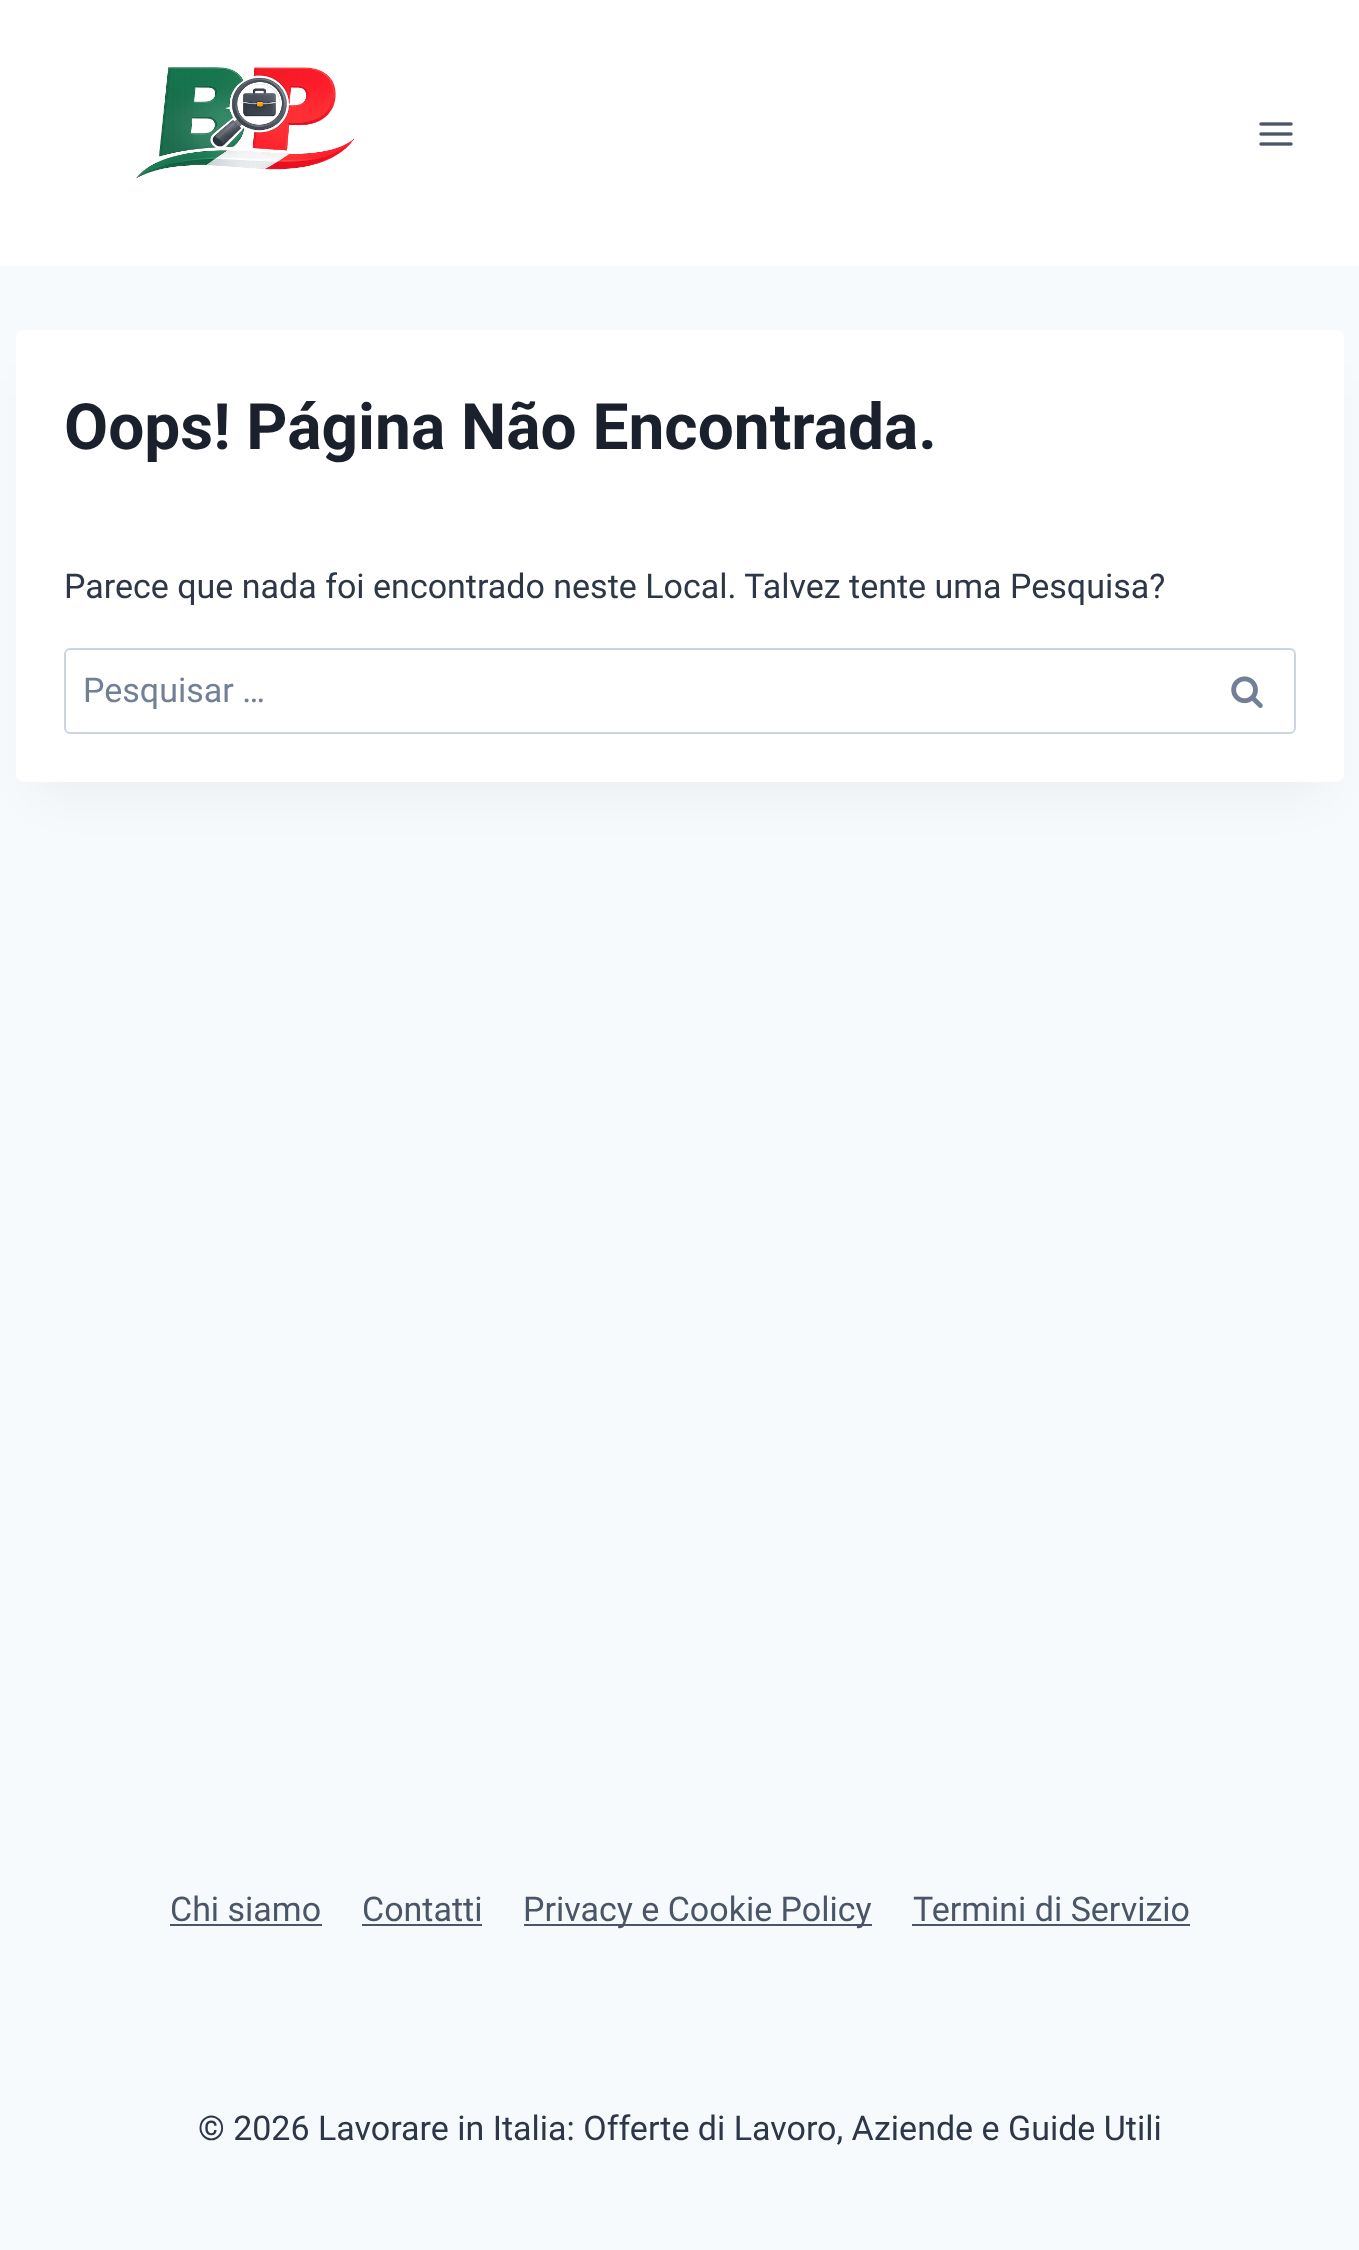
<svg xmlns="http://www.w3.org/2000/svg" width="1359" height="2250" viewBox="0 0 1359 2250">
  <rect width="100%" height="100%" fill="#f7fafc"/>
  <path d="M0 0h1359v266H0z" fill="#fff"/>
  <image x="136" y="67" width="218" height="112" href="img/1.png"/>
  <image x="1259" y="122" width="34" height="24" href="img/2.png"/>
  <path d="M36 380h1288v412H36z" fill="#0000000d" filter="blur(25px)"/>
  <rect x="16" y="330" width="1328" height="452" rx="8" fill="#fff"/>
  <rect x="65" y="649" width="1230" height="84" rx="5" fill="none" stroke="#cbd5e0" stroke-width="2"/>
  <image x="1231" y="676" width="32" height="32" href="img/3.png"/>
  <path d="M170 1924h152v2H170z" fill="#4a5568"/>
  <path d="M362 1924h120v2H362z" fill="#4a5568"/>
  <path d="M524 1924h348v2H524z" fill="#4a5568"/>
  <path d="M912 1924h278v2H912z" fill="#4a5568"/>
  <text x="64" y="449" font-family="Roboto" font-size="64" font-weight="bold" fill="#1a202c">Oops! Página Não Encontrada.</text>
  <text x="64" y="598" font-family="Roboto" font-size="34" fill="#2d3748">Parece que nada foi encontrado neste Local. Talvez tente uma Pesquisa?</text>
  <text x="83" y="702" font-family="Roboto" font-size="34" fill="#718096">Pesquisar …</text>
  <g font-family="Roboto" font-size="34" fill="#4a5568">
    <text x="170" y="1921">Chi siamo</text>
    <text x="362" y="1921">Contatti</text>
    <text x="523" y="1921">Privacy e Cookie Policy</text>
    <text x="913" y="1921">Termini di Servizio</text>
  </g>
  <text x="198" y="2140" font-family="Roboto" font-size="34" fill="#2d3748">© 2026 Lavorare in Italia: Offerte di Lavoro, Aziende e Guide Utili</text>
</svg>
